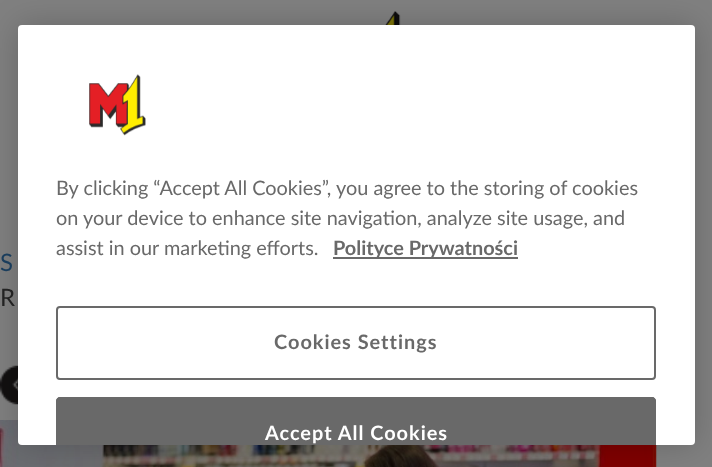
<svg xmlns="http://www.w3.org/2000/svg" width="712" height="467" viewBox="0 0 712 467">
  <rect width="100%" height="100%" fill="#808080"/>
  <image x="304" y="11" width="106" height="14" href="img/1.png"/>
  <image x="0" y="365" width="18" height="40" href="img/2.png"/>
  <image x="0" y="420" width="657" height="47" href="img/3.png"/>
  <rect x="18" y="25" width="677" height="420" rx="4" fill="#00000033" filter="blur(16px)"/>
  <rect x="18" y="25" width="677" height="420" rx="4" fill="#fff"/>
  <image x="89" y="74" width="57" height="62" href="img/4.png"/>
  <path d="M333 257h185v2H333z" fill="#696969"/>
  <rect x="57" y="307" width="598" height="72" rx="3" fill="none" stroke="#696969" stroke-width="2"/>
  <path d="M60 397H652C654 397 656 399 656 401V445H56V401C56 399 58 397 60 397Z" fill="#696969"/>
  <path d="M60 397C58 397 56 399 56 401V445H58V401C58 400 59 399 60 399H652C653 399 654 400 654 401V445H656V401C656 399 654 397 652 397Z" fill="#696969"/>
  <text x="0" y="271" font-family="Lato" font-size="24" fill="#1a3d5c">S</text>
  <text x="0" y="306" font-family="Lato" font-size="24" fill="#222">R</text>
  <g font-family="Lato" font-size="19.9" fill="#696969">
    <text x="56" y="195">By clicking “Accept All Cookies”, you agree to the storing of cookies</text>
    <text x="56" y="225">on your device to enhance site navigation, analyze site usage, and</text>
    <text x="56" y="255">assist in our marketing efforts.</text>
  </g>
  <text x="333" y="255" font-family="Lato" font-size="19.9" font-weight="bold" fill="#696969">Polityce Prywatności</text>
  <text x="274" y="349" font-family="Lato" font-size="19.9" font-weight="bold" letter-spacing="1" fill="#696969">Cookies Settings</text>
  <text x="265" y="440" font-family="Lato" font-size="19.9" font-weight="bold" letter-spacing="1" fill="#fff">Accept All Cookies</text>
</svg>
